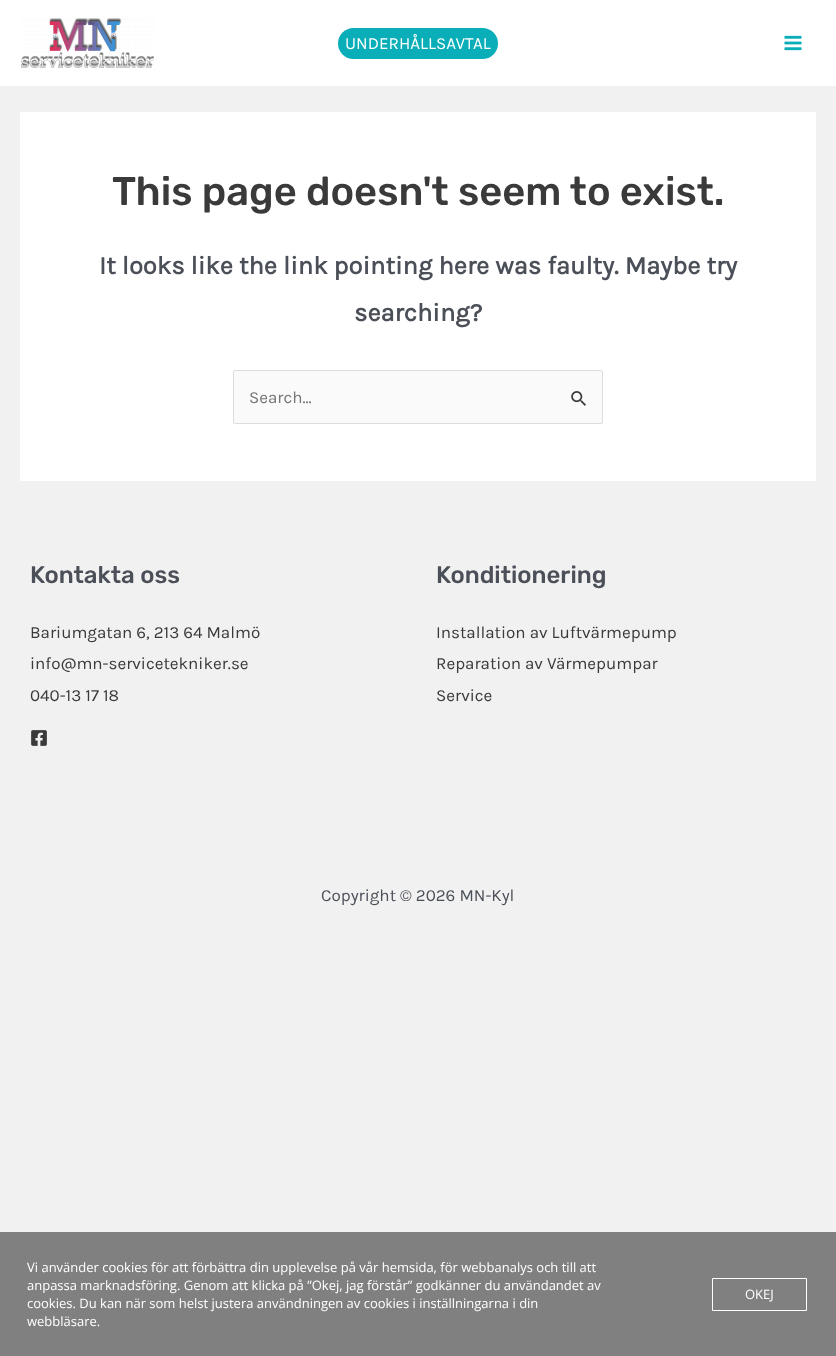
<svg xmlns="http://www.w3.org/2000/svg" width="836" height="1356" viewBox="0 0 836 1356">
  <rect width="100%" height="100%" fill="#f1f1f1"/>
  <path d="M0 0h836v86H0z" fill="#fff"/>
  <image x="21" y="18" width="134" height="50" href="img/1.png"/>
  <rect x="338" y="28" width="160" height="31" rx="15.5" fill="#09aeb8"/>
  <image x="784" y="35" width="18" height="16" href="img/2.png"/>
  <path d="M20 112h796v369H20z" fill="#fff"/>
  <rect x="233.5" y="370.5" width="369" height="53" rx="1.5" fill="#fafafa" stroke="#ddd"/>
  <image x="571" y="391" width="15" height="15" href="img/3.png"/>
  <image x="31" y="730" width="16" height="16" href="img/4.png"/>
  <path d="M0 1232h836v124H0z" fill="#808080"/>
  <path d="M712.5 1278.5h94v32H712.5z" fill="none" stroke="#fff"/>
  <text x="345" y="49" font-family="Karla" font-size="17" fill="#fff">UNDERHÅLLSAVTAL</text>
  <text x="112" y="205" font-family="Rubik" font-size="40" font-weight="500" fill="#3a3a3a">This page doesn't seem to exist.</text>
  <g font-family="Karla" font-size="25.5" font-weight="bold" fill="#4b4f58">
    <text x="99" y="274">It looks like the link pointing here was faulty. Maybe try</text>
    <text x="354" y="321">searching?</text>
  </g>
  <text x="249" y="403" font-family="Karla" font-size="17" fill="#757575">Search...</text>
  <text x="30" y="583" font-family="Rubik" font-size="24" font-weight="500" fill="#4b4f58">Kontakta oss</text>
  <g font-family="Karla" font-size="17" fill="#3a3a3a">
    <text x="30" y="638">Bariumgatan 6, 213 64 Malmö</text>
    <text x="30" y="669">info@mn-servicetekniker.se</text>
    <text x="30" y="701">040-13 17 18</text>
  </g>
  <text x="436" y="583" font-family="Rubik" font-size="24" font-weight="500" fill="#4b4f58">Konditionering</text>
  <g font-family="Karla" font-size="17" fill="#3a3a3a">
    <text x="436" y="638">Installation av Luftvärmepump</text>
    <text x="436" y="669">Reparation av Värmepumpar</text>
    <text x="436" y="701">Service</text>
  </g>
  <text x="321" y="901" font-family="Karla" font-size="17" fill="#4b4f58">Copyright © 2026 MN-Kyl</text>
  <g font-family="Open Sans" font-size="13" fill="#fff">
    <text x="27" y="1272">Vi använder cookies för att förbättra din upplevelse på vår hemsida, för webbanalys och till att</text>
    <text x="27" y="1290">anpassa marknadsföring. Genom att klicka på ”Okej, jag förstår” godkänner du användandet av</text>
    <text x="27" y="1308">cookies. Du kan när som helst justera användningen av cookies i inställningarna i din</text>
    <text x="27" y="1326">webbläsare.</text>
    <text x="745" y="1299">OKEJ</text>
  </g>
</svg>
